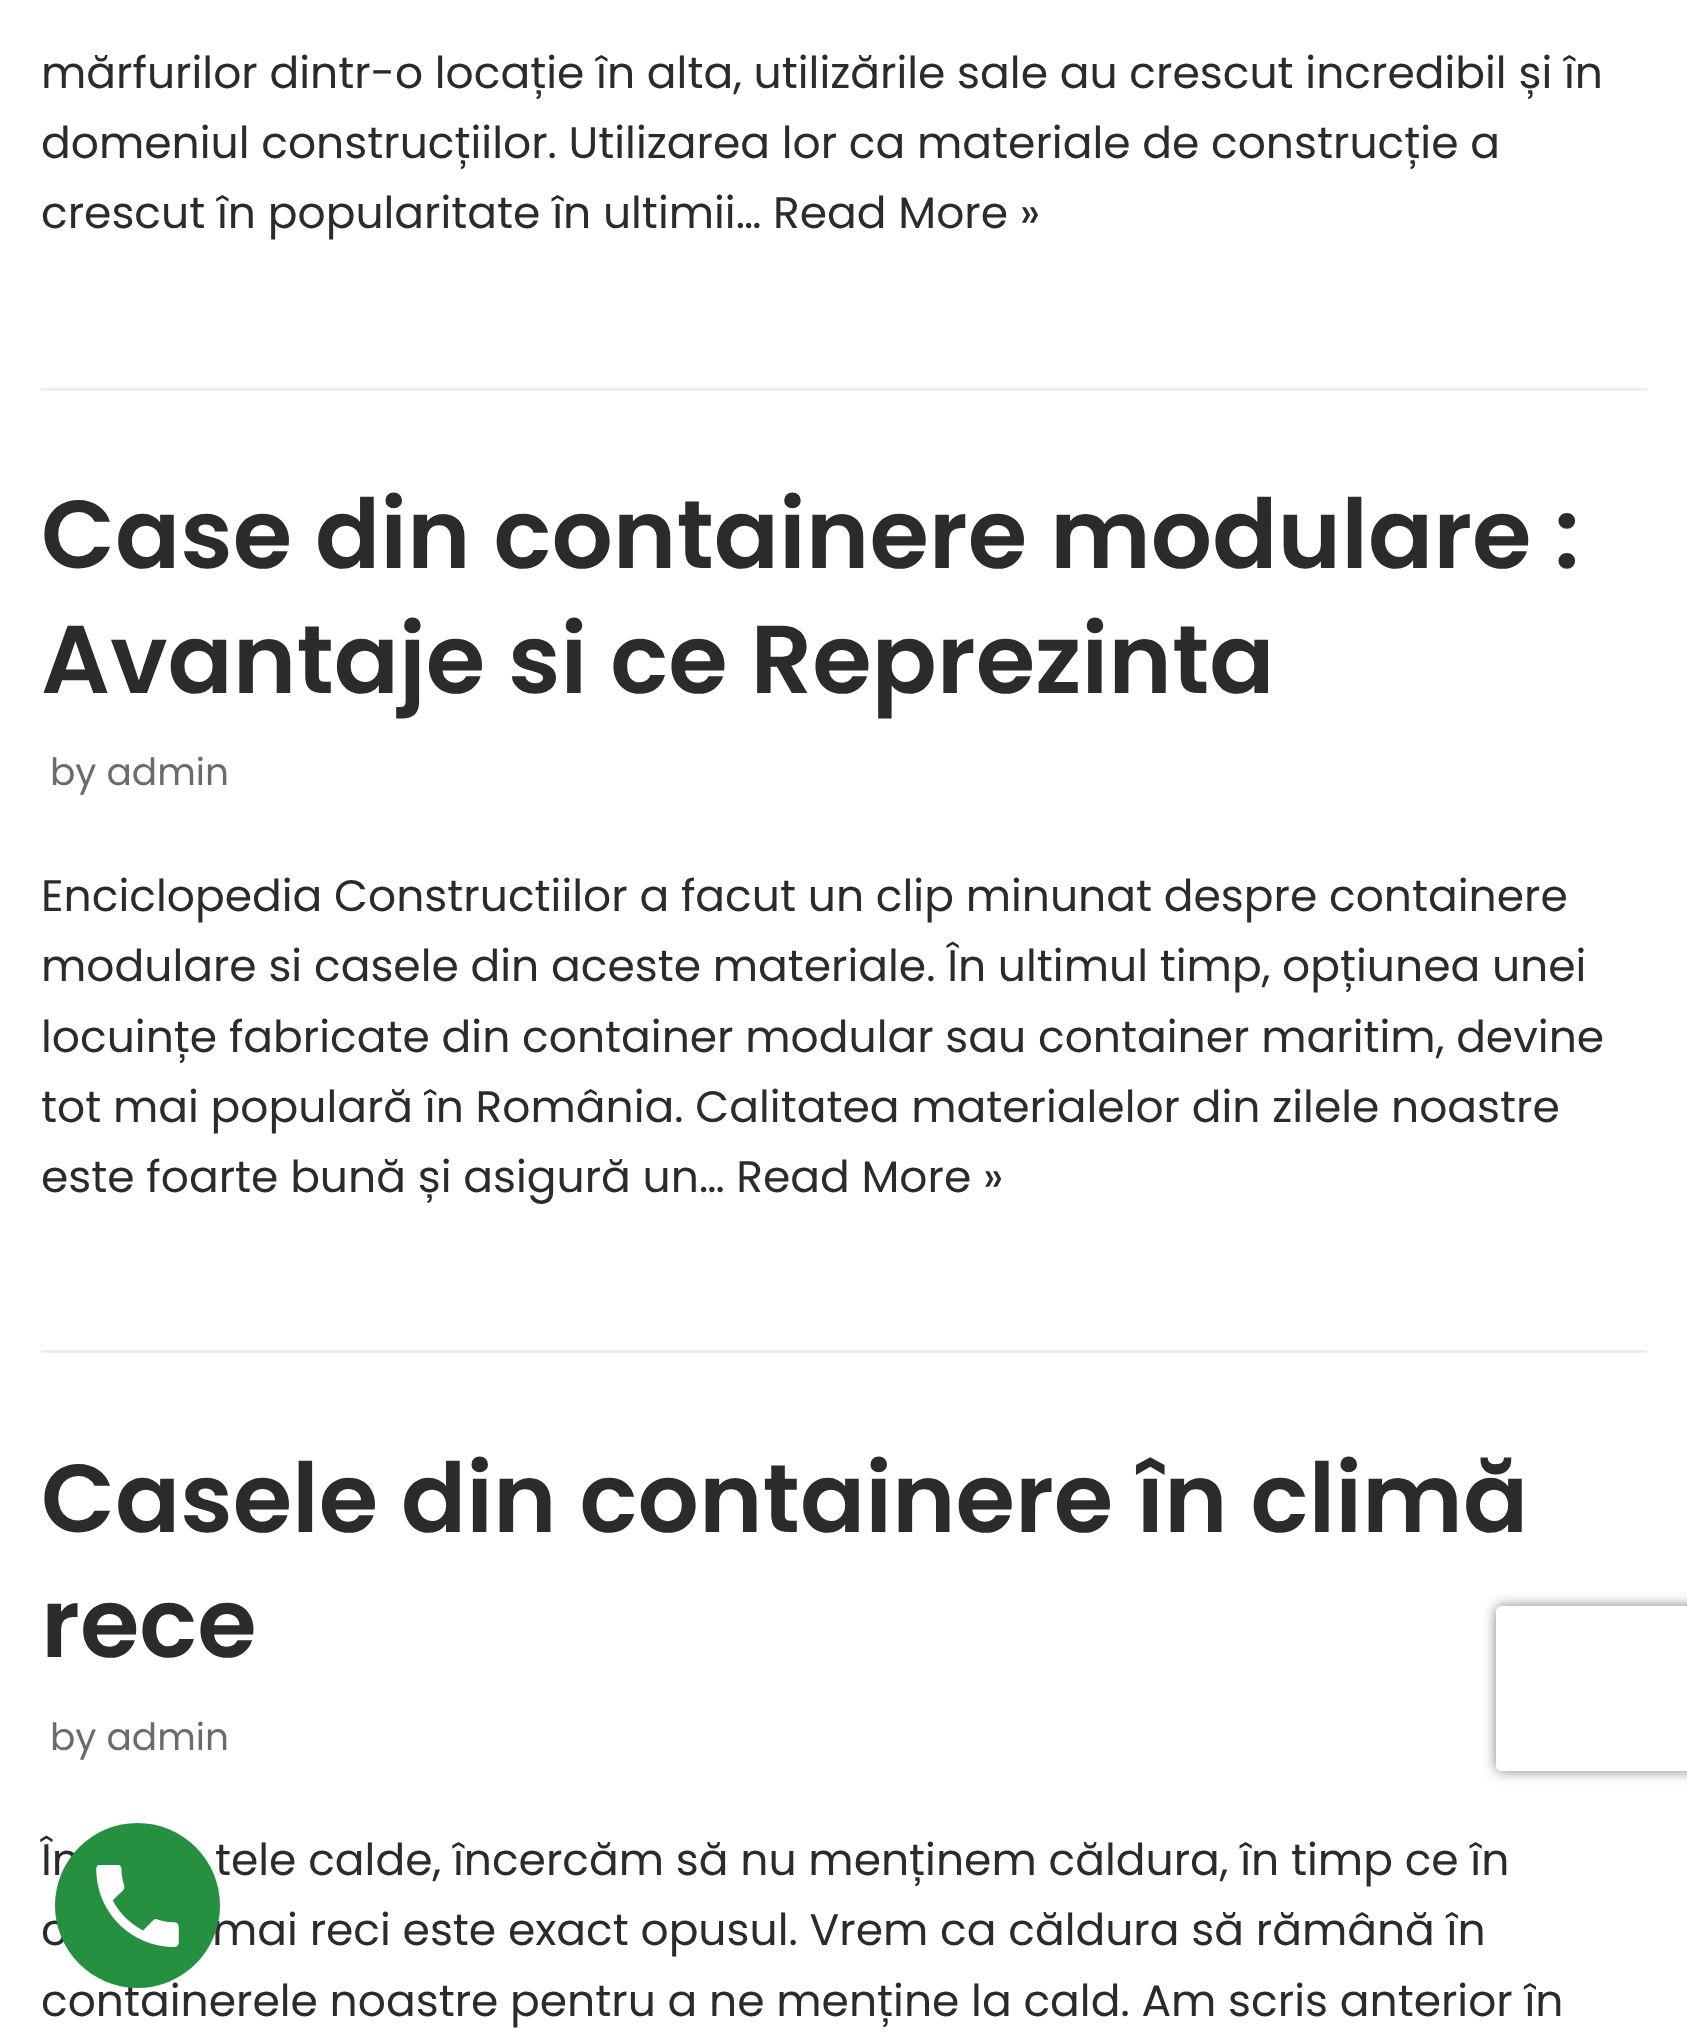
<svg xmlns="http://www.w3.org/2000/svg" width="1687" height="2043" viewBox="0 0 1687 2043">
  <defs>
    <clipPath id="clip1"><path d="M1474 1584H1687V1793H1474ZM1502 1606H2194C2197.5 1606 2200 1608.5 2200 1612V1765C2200 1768.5 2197.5 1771 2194 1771H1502C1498.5 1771 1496 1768.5 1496 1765V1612C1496 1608.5 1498.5 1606 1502 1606Z" clip-rule="evenodd"/></clipPath>
  </defs>
  <rect width="100%" height="100%" fill="#fff"/>
  <path d="M41 388h1606v3H41z" fill="#ededed"/>
  <path d="M41 1350h1606v3H41z" fill="#ededed"/>
  <g clip-path="url(#clip1)">
    <rect x="1496" y="1606" width="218" height="165" rx="6" fill="#808080" filter="blur(7px)"/>
  </g>
  <g font-family="Poppins" font-size="44" fill="#2b2b2b">
    <text x="41" y="88">mărfurilor dintr-o locație în alta, utilizările sale au crescut incredibil și în</text>
    <text x="41" y="158">domeniul construcțiilor. Utilizarea lor ca materiale de construcție a</text>
    <text x="41" y="228">crescut în popularitate în ultimii… Read More »</text>
  </g>
  <g font-family="Poppins" font-size="96.25" font-weight="600" fill="#2b2b2b">
    <text x="41" y="568">Case din containere modulare :</text>
    <text x="41" y="693">Avantaje si ce Reprezinta</text>
  </g>
  <text x="50" y="785" font-family="Poppins" font-size="37.5" fill="#6b6b6b">by admin</text>
  <g font-family="Poppins" font-size="44" fill="#2b2b2b">
    <text x="41" y="911">Enciclopedia Constructiilor a facut un clip minunat despre containere</text>
    <text x="41" y="981">modulare si casele din aceste materiale. În ultimul timp, opțiunea unei</text>
    <text x="41" y="1052">locuințe fabricate din container modular sau container maritim, devine</text>
    <text x="41" y="1122">tot mai populară în România. Calitatea materialelor din zilele noastre</text>
    <text x="41" y="1192">este foarte bună și asigură un… Read More »</text>
  </g>
  <g font-family="Poppins" font-size="96.25" font-weight="600" fill="#2b2b2b">
    <text x="41" y="1532">Casele din containere în climă</text>
    <text x="41" y="1657">rece</text>
  </g>
  <text x="50" y="1750" font-family="Poppins" font-size="37.5" fill="#6b6b6b">by admin</text>
  <g font-family="Poppins" font-size="44" fill="#2b2b2b">
    <text x="41" y="1875">În</text>
    <text x="215" y="1875">tele calde, încercăm să nu menținem căldura, în timp ce în</text>
    <text x="41" y="1945">c</text>
    <text x="212" y="1945">mai reci este exact opusul. Vrem ca căldura să rămână în</text>
    <text x="41" y="2016">containerele noastre pentru a ne menține la cald. Am scris anterior în</text>
  </g>
  <circle cx="137.5" cy="1905.5" r="82.5" fill="#269041"/>
  <image x="96" y="1865" width="83" height="82" href="img/1.png"/>
</svg>
